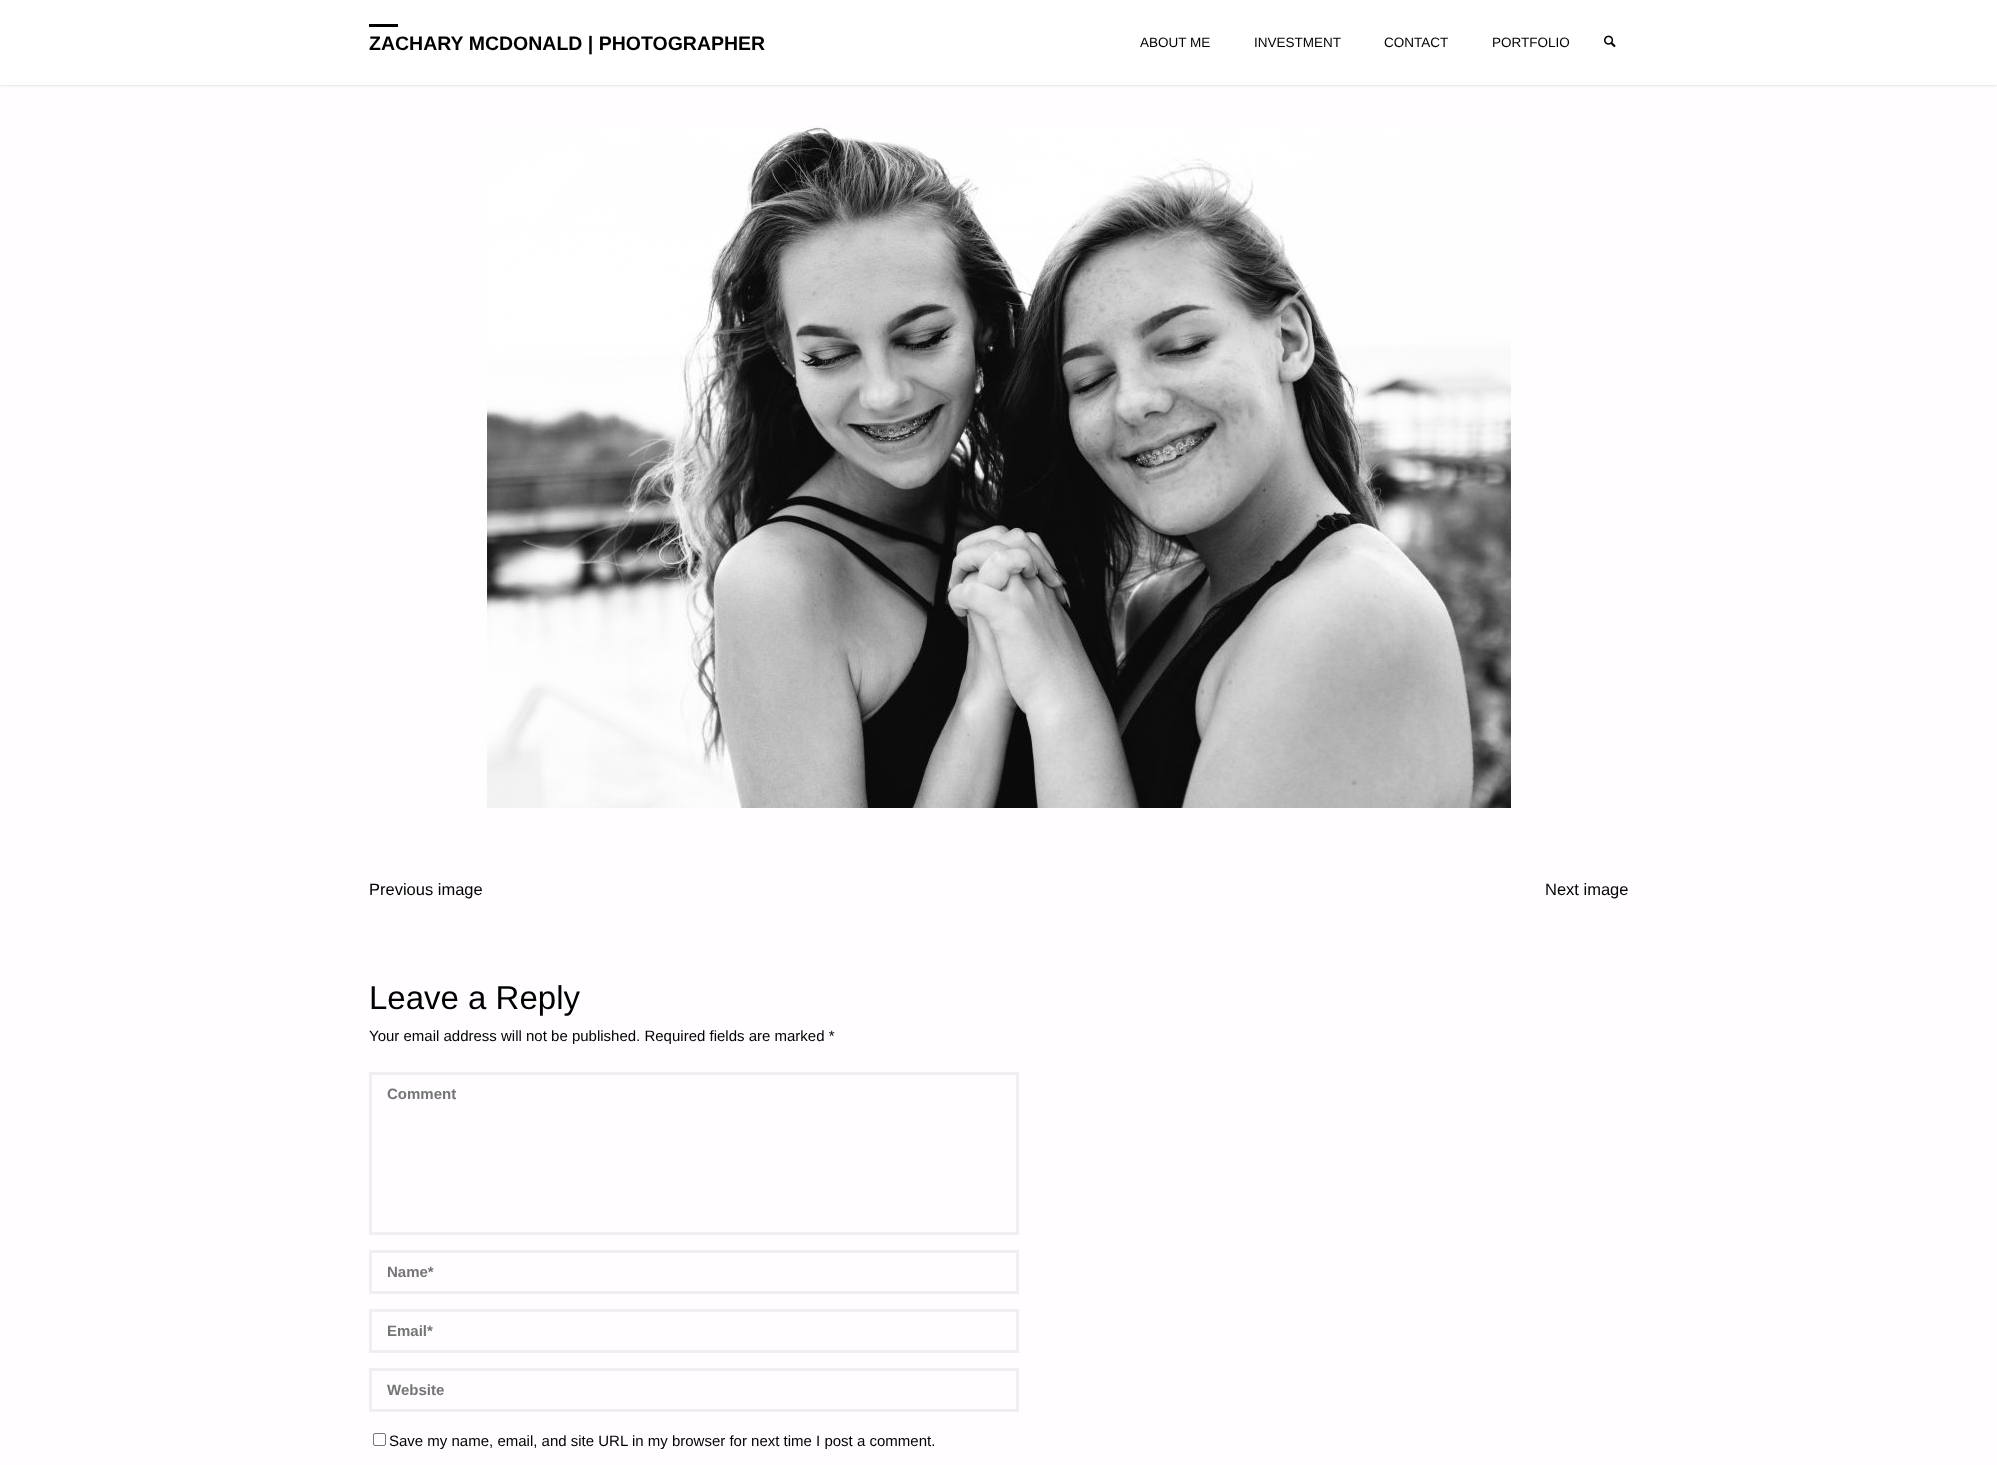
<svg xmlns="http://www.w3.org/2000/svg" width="1997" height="1465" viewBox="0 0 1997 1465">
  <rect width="100%" height="100%" fill="#fffdff"/>
  <path d="M0 0h1997v85H0z" fill="#00000033" filter="blur(1.5px)"/>
  <path d="M0 0h1997v85H0z" fill="#fff"/>
  <path d="M369 24h29v3H369z" fill="#000"/>
  <image x="1604" y="35" width="12" height="13" href="img/1.png"/>
  <image x="487" y="125" width="1024" height="683" href="img/2.png"/>
  <path d="M370.5 1073.5h647v160H370.5z" fill="none" stroke="#f0eef0" stroke-width="3"/>
  <path d="M370.5 1251.5h647v41H370.5z" fill="none" stroke="#f0eef0" stroke-width="3"/>
  <path d="M370.5 1310.5h647v41H370.5z" fill="none" stroke="#f0eef0" stroke-width="3"/>
  <path d="M370.5 1369.5h647v41H370.5z" fill="none" stroke="#f0eef0" stroke-width="3"/>
  <rect x="373.5" y="1433.5" width="12" height="12" rx="1.5" fill="none" stroke="#767676"/>
  <text x="369" y="50" font-family="Liberation Sans" font-size="19.5" font-weight="bold" fill="#000">ZACHARY MCDONALD | PHOTOGRAPHER</text>
  <g font-family="Liberation Sans" font-size="13.5" fill="#000">
    <text x="1140" y="47">ABOUT ME</text>
    <text x="1254" y="47">INVESTMENT</text>
    <text x="1384" y="47">CONTACT</text>
    <text x="1492" y="47">PORTFOLIO</text>
  </g>
  <g font-family="Liberation Sans" font-size="16.5" fill="#000">
    <text x="369" y="895">Previous image</text>
    <text x="1545" y="895">Next image</text>
  </g>
  <text x="369" y="1009" font-family="Liberation Sans" font-size="33" fill="#000">Leave a Reply</text>
  <text x="369" y="1041" font-family="Liberation Sans" font-size="15" fill="#000">Your email address will not be published. Required fields are marked *</text>
  <g font-family="Liberation Sans" font-size="15" font-weight="bold" fill="#757575">
    <text x="387" y="1099">Comment</text>
    <text x="387" y="1277">Name*</text>
    <text x="387" y="1336">Email*</text>
    <text x="387" y="1395">Website</text>
  </g>
  <text x="389" y="1446" font-family="Liberation Sans" font-size="15" fill="#000">Save my name, email, and site URL in my browser for next time I post a comment.</text>
</svg>
